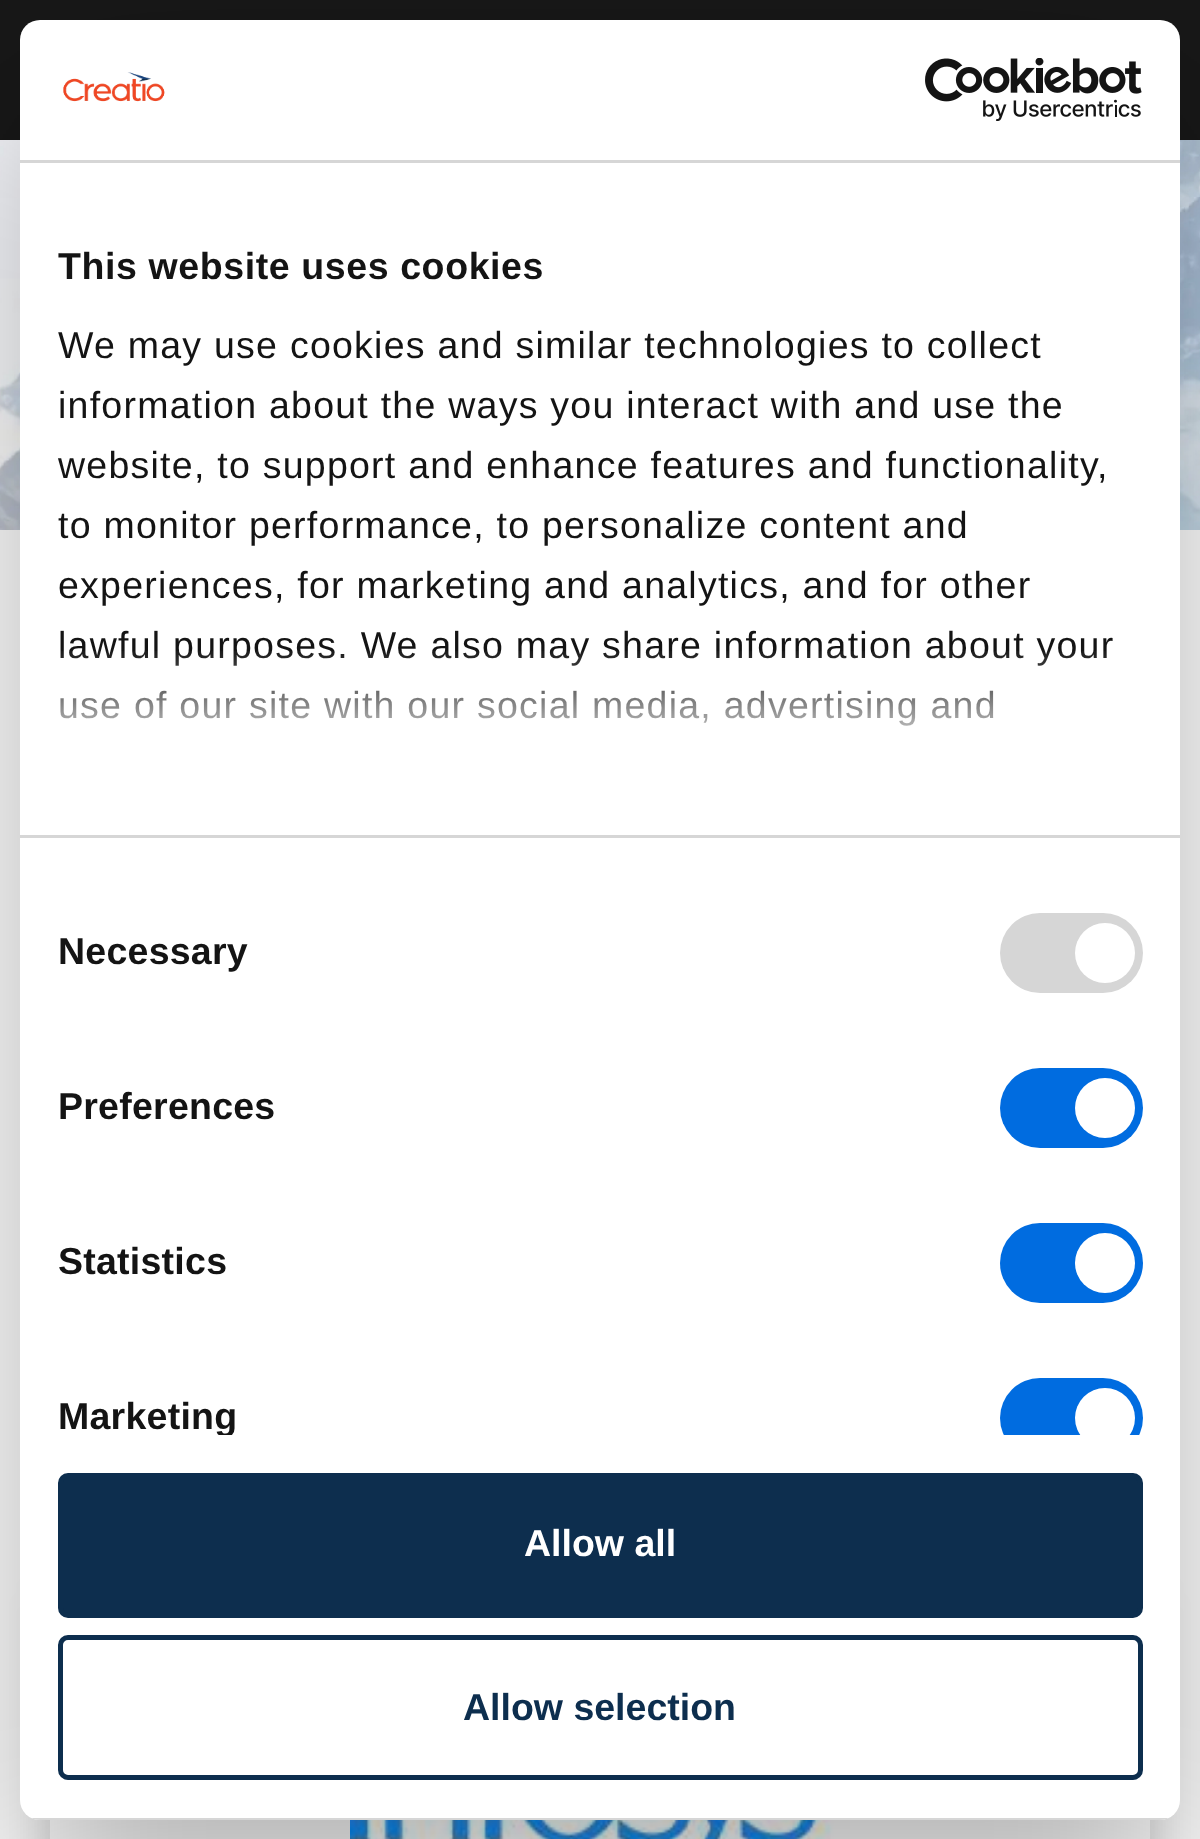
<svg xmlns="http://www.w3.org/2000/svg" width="1200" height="1839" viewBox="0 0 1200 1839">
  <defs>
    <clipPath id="clip1"><path d="M20 163h1160v1272H20z"/></clipPath>
    <clipPath id="clip2"><rect x="20" y="20" width="1160" height="1800" rx="20"/></clipPath>
    <linearGradient id="g1" gradientUnits="userSpaceOnUse" x1="584" y1="835" x2="584" y2="648"><stop offset="0" stop-color="#fff"/><stop offset="0.5" stop-color="#fff" stop-opacity="0.8"/><stop offset="1" stop-color="#fff" stop-opacity="0"/></linearGradient>
  </defs>
  <rect width="100%" height="100%" fill="#fff"/>
  <path d="M0 0h1200v140H0z" fill="#181818"/>
  <image x="0" y="140" width="1200" height="390" href="img/1.png"/>
  <rect x="50" y="1588" width="1100" height="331" rx="20" fill="#00000029" filter="blur(20px)"/>
  <path d="M50 1820h1100v19H50z" fill="#fff"/>
  <image x="350" y="1820" width="500" height="19" href="img/2.png"/>
  <rect x="20" y="100" width="1160" height="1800" rx="20" fill="#0000004d" filter="blur(85px)"/>
  <rect x="20" y="20" width="1160" height="1800" rx="20" fill="#fff"/>
  <path d="M20 160h1160v3H20z" fill="#d6d6d6"/>
  <image x="63" y="72" width="102" height="30" href="img/3.png"/>
  <image x="925" y="58" width="217" height="63" href="img/4.png"/>
  <path d="M20 835h1160v3H20z" fill="#d6d6d6"/>
  <rect x="1000" y="913" width="143" height="80" rx="40" fill="#d6d6d6"/>
  <circle cx="1105" cy="953" r="30" fill="#fff"/>
  <rect x="1000" y="1068" width="143" height="80" rx="40" fill="#006ce0"/>
  <circle cx="1105" cy="1108" r="30" fill="#fff"/>
  <rect x="1000" y="1223" width="143" height="80" rx="40" fill="#006ce0"/>
  <circle cx="1105" cy="1263" r="30" fill="#fff"/>
  <g clip-path="url(#clip1)">
    <rect x="1000" y="1378" width="143" height="80" rx="40" fill="#006ce0"/>
    <circle cx="1105" cy="1418" r="30" fill="#fff"/>
  </g>
  <g clip-path="url(#clip2)">
    <path d="M31 1818h1138v2H31z" fill="#d6d6d6"/>
  </g>
  <rect x="60.5" y="1475.5" width="1080" height="140" rx="7.5" fill="#0d2e4e" stroke="#0d2e4e" stroke-width="5"/>
  <rect x="60.5" y="1637.5" width="1080" height="140" rx="7.5" fill="none" stroke="#0d2e4e" stroke-width="5"/>
  <text x="58" y="279" font-family="Liberation Sans" font-size="37.5" font-weight="bold" letter-spacing="0.6" fill="#141414">This website uses cookies</text>
  <g font-family="Liberation Sans" font-size="37.5" letter-spacing="1.25" fill="#141414">
    <text x="58" y="358">We may use cookies and similar technologies to collect</text>
    <text x="58" y="418">information about the ways you interact with and use the</text>
    <text x="58" y="478">website, to support and enhance features and functionality,</text>
    <text x="58" y="538">to monitor performance, to personalize content and</text>
    <text x="58" y="598">experiences, for marketing and analytics, and for other</text>
    <text x="58" y="658">lawful purposes. We also may share information about your</text>
    <text x="58" y="718">use of our site with our social media, advertising and</text>
  </g>
  <path d="M59 651h1047v75H59z" fill="url(#g1)"/>
  <g font-family="Liberation Sans" font-size="37.5" font-weight="bold" letter-spacing="0.25" fill="#141414">
    <text x="58" y="964">Necessary</text>
    <text x="58" y="1119">Preferences</text>
    <text x="58" y="1274">Statistics</text>
  </g>
  <g clip-path="url(#clip1)">
    <text x="58" y="1429" font-family="Liberation Sans" font-size="37.5" font-weight="bold" letter-spacing="0.25" fill="#141414">Marketing</text>
  </g>
  <text x="524" y="1556" font-family="Liberation Sans" font-size="37.5" font-weight="bold" fill="#fff">Allow all</text>
  <text x="463" y="1720" font-family="Liberation Sans" font-size="37.5" font-weight="bold" fill="#0d2e4e">Allow selection</text>
</svg>
